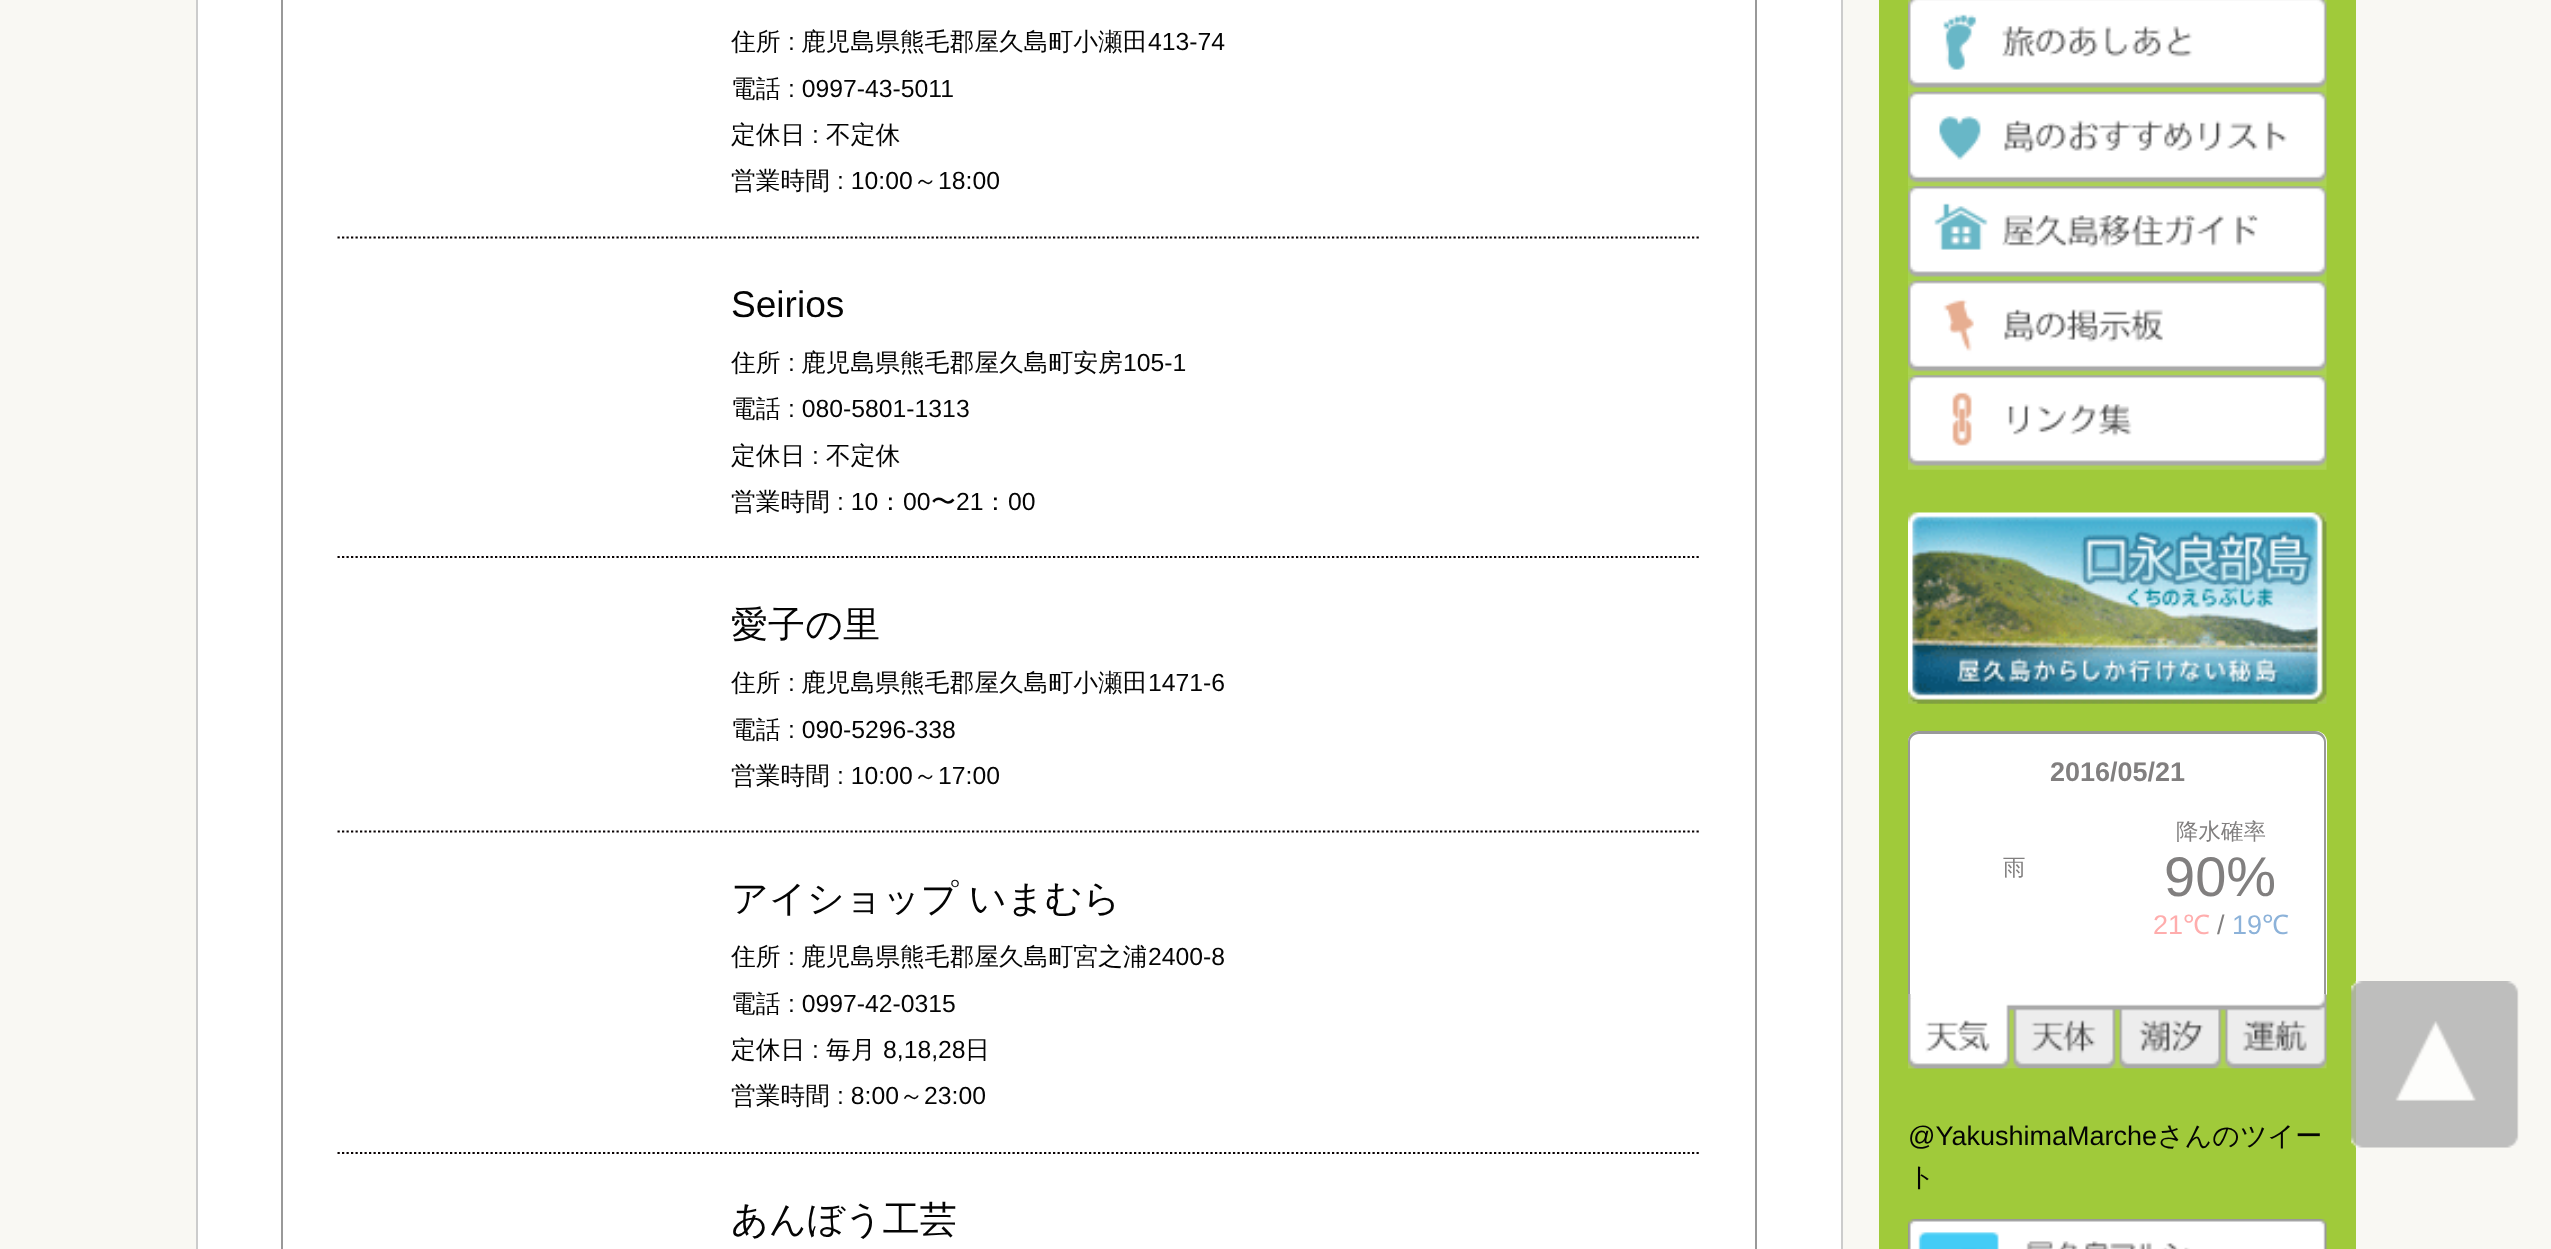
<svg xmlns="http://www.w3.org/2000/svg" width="2551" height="1249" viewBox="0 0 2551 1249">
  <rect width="100%" height="100%" fill="#f9f8f3"/>
  <path d="M197 -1h1645v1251H197z" fill="#fff" stroke="#ccc" stroke-width="2"/>
  <path d="M1755 0h2v1249H1755z" fill="#999"/>
  <path d="M281 0h2v1249H281z" fill="#999"/>
  <path d="M337.5 237.5H1701" fill="none" stroke="#080102" stroke-width="2.2" stroke-dasharray="2.25 2.25"/>
  <path d="M337.5 557H1701" fill="none" stroke="#080102" stroke-width="2.2" stroke-dasharray="2.25 2.25"/>
  <path d="M337.5 831.5H1701" fill="none" stroke="#080102" stroke-width="2.2" stroke-dasharray="2.25 2.25"/>
  <path d="M337.5 1153H1701" fill="none" stroke="#080102" stroke-width="2.2" stroke-dasharray="2.25 2.25"/>
  <path d="M1879 0h477v1249H1879z" fill="#a0ca3a"/>
  <image x="1908" y="0" width="419" height="92" href="img/1.png"/>
  <image x="1908" y="91" width="419" height="96" href="img/2.png"/>
  <image x="1908" y="186" width="419" height="95" href="img/3.png"/>
  <image x="1908" y="280" width="419" height="96" href="img/4.png"/>
  <image x="1908" y="375" width="419" height="95" href="img/5.png"/>
  <image x="1908" y="512" width="419" height="192" href="img/6.png"/>
  <path d="M1919 731H2316C2322 731 2327 736 2327 742V995H1908V742C1908 736 1913 731 1919 731Z" fill="#fff"/>
  <path d="M1919 731H2315C2321 731 2326 736 2326 742V994H1908V742C1908 736 1913 731 1919 731ZM1919 734H2315C2320 734 2324 738 2324 742V994H1910V742C1910 738 1914 734 1919 734Z" fill="#999" fill-rule="evenodd"/>
  <image x="1908" y="994" width="419" height="75" href="img/7.png"/>
  <image x="1908" y="999" width="102" height="70" href="img/8.png"/>
  <image x="1908" y="1219" width="419" height="30" href="img/9.png"/>
  <image x="2351" y="981" width="168" height="167" href="img/10.png"/>
  <text x="731" y="50" font-family="WenQuanYi Zen Hei" font-size="24.75" font-weight="500" fill="#040404">住所</text>
  <text x="788" y="50" font-family="Liberation Sans" font-size="24.75" fill="#040404">:</text>
  <text x="801" y="50" font-family="WenQuanYi Zen Hei" font-size="24.75" font-weight="500" fill="#040404">鹿児島県熊毛郡屋久島町小瀬田</text>
  <text x="1148" y="50" font-family="Liberation Sans" font-size="24.75" fill="#040404">413-74</text>
  <text x="731" y="97" font-family="WenQuanYi Zen Hei" font-size="24.75" font-weight="500" fill="#040404">電話</text>
  <text x="788" y="97" font-family="Liberation Sans" font-size="24.75" fill="#040404">: 0997-43-5011</text>
  <text x="731" y="143" font-family="WenQuanYi Zen Hei" font-size="24.75" font-weight="500" fill="#040404">定休日</text>
  <text x="812" y="143" font-family="Liberation Sans" font-size="24.75" fill="#040404">:</text>
  <g font-family="WenQuanYi Zen Hei" font-size="24.75" font-weight="500" fill="#040404">
    <text x="826" y="143">不定休</text>
    <text x="731" y="189">営業時間</text>
  </g>
  <text x="837" y="189" font-family="Liberation Sans" font-size="24.75" fill="#040404">: 10:00</text>
  <text x="913" y="189" font-family="WenQuanYi Zen Hei" font-size="24.75" font-weight="500" fill="#040404">～</text>
  <text x="938" y="189" font-family="Liberation Sans" font-size="24.75" fill="#040404">18:00</text>
  <text x="731" y="317" font-family="Liberation Sans" font-size="37.1" fill="#040404">Seirios</text>
  <text x="731" y="371" font-family="WenQuanYi Zen Hei" font-size="24.75" font-weight="500" fill="#040404">住所</text>
  <text x="788" y="371" font-family="Liberation Sans" font-size="24.75" fill="#040404">:</text>
  <text x="801" y="371" font-family="WenQuanYi Zen Hei" font-size="24.75" font-weight="500" fill="#040404">鹿児島県熊毛郡屋久島町安房</text>
  <text x="1123" y="371" font-family="Liberation Sans" font-size="24.75" fill="#040404">105-1</text>
  <text x="731" y="417" font-family="WenQuanYi Zen Hei" font-size="24.75" font-weight="500" fill="#040404">電話</text>
  <text x="788" y="417" font-family="Liberation Sans" font-size="24.75" fill="#040404">: 080-5801-1313</text>
  <text x="731" y="464" font-family="WenQuanYi Zen Hei" font-size="24.75" font-weight="500" fill="#040404">定休日</text>
  <text x="812" y="464" font-family="Liberation Sans" font-size="24.75" fill="#040404">:</text>
  <g font-family="WenQuanYi Zen Hei" font-size="24.75" font-weight="500" fill="#040404">
    <text x="826" y="464">不定休</text>
    <text x="731" y="510">営業時間</text>
  </g>
  <text x="837" y="510" font-family="Liberation Sans" font-size="24.75" fill="#040404">: 10</text>
  <text x="878" y="510" font-family="WenQuanYi Zen Hei" font-size="24.75" font-weight="500" fill="#040404">：</text>
  <text x="903" y="510" font-family="Liberation Sans" font-size="24.75" fill="#040404">00</text>
  <text x="931" y="510" font-family="WenQuanYi Zen Hei" font-size="24.75" font-weight="500" fill="#040404">〜</text>
  <text x="956" y="510" font-family="Liberation Sans" font-size="24.75" fill="#040404">21</text>
  <text x="983" y="510" font-family="WenQuanYi Zen Hei" font-size="24.75" font-weight="500" fill="#040404">：</text>
  <text x="1008" y="510" font-family="Liberation Sans" font-size="24.75" fill="#040404">00</text>
  <text x="731" y="637" font-family="WenQuanYi Zen Hei" font-size="37.1" font-weight="500" fill="#040404">愛子の里</text>
  <text x="731" y="691" font-family="WenQuanYi Zen Hei" font-size="24.75" font-weight="500" fill="#040404">住所</text>
  <text x="788" y="691" font-family="Liberation Sans" font-size="24.75" fill="#040404">:</text>
  <text x="801" y="691" font-family="WenQuanYi Zen Hei" font-size="24.75" font-weight="500" fill="#040404">鹿児島県熊毛郡屋久島町小瀬田</text>
  <text x="1148" y="691" font-family="Liberation Sans" font-size="24.75" fill="#040404">1471-6</text>
  <text x="731" y="738" font-family="WenQuanYi Zen Hei" font-size="24.75" font-weight="500" fill="#040404">電話</text>
  <text x="788" y="738" font-family="Liberation Sans" font-size="24.75" fill="#040404">: 090-5296-338</text>
  <text x="731" y="784" font-family="WenQuanYi Zen Hei" font-size="24.75" font-weight="500" fill="#040404">営業時間</text>
  <text x="837" y="784" font-family="Liberation Sans" font-size="24.75" fill="#040404">: 10:00</text>
  <text x="913" y="784" font-family="WenQuanYi Zen Hei" font-size="24.75" font-weight="500" fill="#040404">～</text>
  <text x="938" y="784" font-family="Liberation Sans" font-size="24.75" fill="#040404">17:00</text>
  <text x="731" y="911" word-spacing="-1" font-family="WenQuanYi Zen Hei" font-size="37.1" font-weight="500" fill="#040404">アイショップ いまむら</text>
  <text x="731" y="965" font-family="WenQuanYi Zen Hei" font-size="24.75" font-weight="500" fill="#040404">住所</text>
  <text x="788" y="965" font-family="Liberation Sans" font-size="24.75" fill="#040404">:</text>
  <text x="801" y="965" font-family="WenQuanYi Zen Hei" font-size="24.75" font-weight="500" fill="#040404">鹿児島県熊毛郡屋久島町宮之浦</text>
  <text x="1148" y="965" font-family="Liberation Sans" font-size="24.75" fill="#040404">2400-8</text>
  <text x="731" y="1012" font-family="WenQuanYi Zen Hei" font-size="24.75" font-weight="500" fill="#040404">電話</text>
  <text x="788" y="1012" font-family="Liberation Sans" font-size="24.75" fill="#040404">: 0997-42-0315</text>
  <text x="731" y="1058" font-family="WenQuanYi Zen Hei" font-size="24.75" font-weight="500" fill="#040404">定休日</text>
  <text x="812" y="1058" font-family="Liberation Sans" font-size="24.75" fill="#040404">:</text>
  <text x="826" y="1058" font-family="WenQuanYi Zen Hei" font-size="24.75" font-weight="500" fill="#040404">毎月</text>
  <text x="883" y="1058" font-family="Liberation Sans" font-size="24.75" fill="#040404">8,18,28</text>
  <g font-family="WenQuanYi Zen Hei" font-size="24.75" font-weight="500" fill="#040404">
    <text x="965" y="1058">日</text>
    <text x="731" y="1104">営業時間</text>
  </g>
  <text x="837" y="1104" font-family="Liberation Sans" font-size="24.75" fill="#040404">: 8:00</text>
  <text x="899" y="1104" font-family="WenQuanYi Zen Hei" font-size="24.75" font-weight="500" fill="#040404">～</text>
  <text x="924" y="1104" font-family="Liberation Sans" font-size="24.75" fill="#040404">23:00</text>
  <text x="731" y="1232" font-family="WenQuanYi Zen Hei" font-size="37.1" font-weight="500" fill="#040404">あんぼう工芸</text>
  <text x="2050" y="781" font-family="Liberation Sans" font-size="27" font-weight="bold" fill="#817f7f">2016/05/21</text>
  <g font-family="WenQuanYi Zen Hei" font-size="22.5" font-weight="500" fill="#817f7f">
    <text x="2003" y="875">雨</text>
    <text x="2176" y="839">降水確率</text>
  </g>
  <text x="2164" y="896" font-family="Liberation Sans" font-size="56" fill="#817f7f">90%</text>
  <text x="2153" y="934" font-family="Liberation Sans" font-size="27" fill="#ffadad">21</text>
  <text x="2183" y="934" font-family="Noto Sans" font-size="27" fill="#ffadad">℃</text>
  <text x="2217" y="934" font-family="Liberation Sans" font-size="27" fill="#817f7f">/</text>
  <text x="2232" y="934" font-family="Liberation Sans" font-size="27" fill="#8cb2d9">19</text>
  <text x="2262" y="934" font-family="Noto Sans" font-size="27" fill="#8cb2d9">℃</text>
  <text x="1908" y="1145" font-family="Liberation Sans" font-size="27" fill="#040404">@YakushimaMarche</text>
  <g font-family="WenQuanYi Zen Hei" font-size="27" font-weight="500" fill="#040404">
    <text x="2157" y="1145">さんのツイー</text>
    <text x="1908" y="1186">ト</text>
  </g>
</svg>
